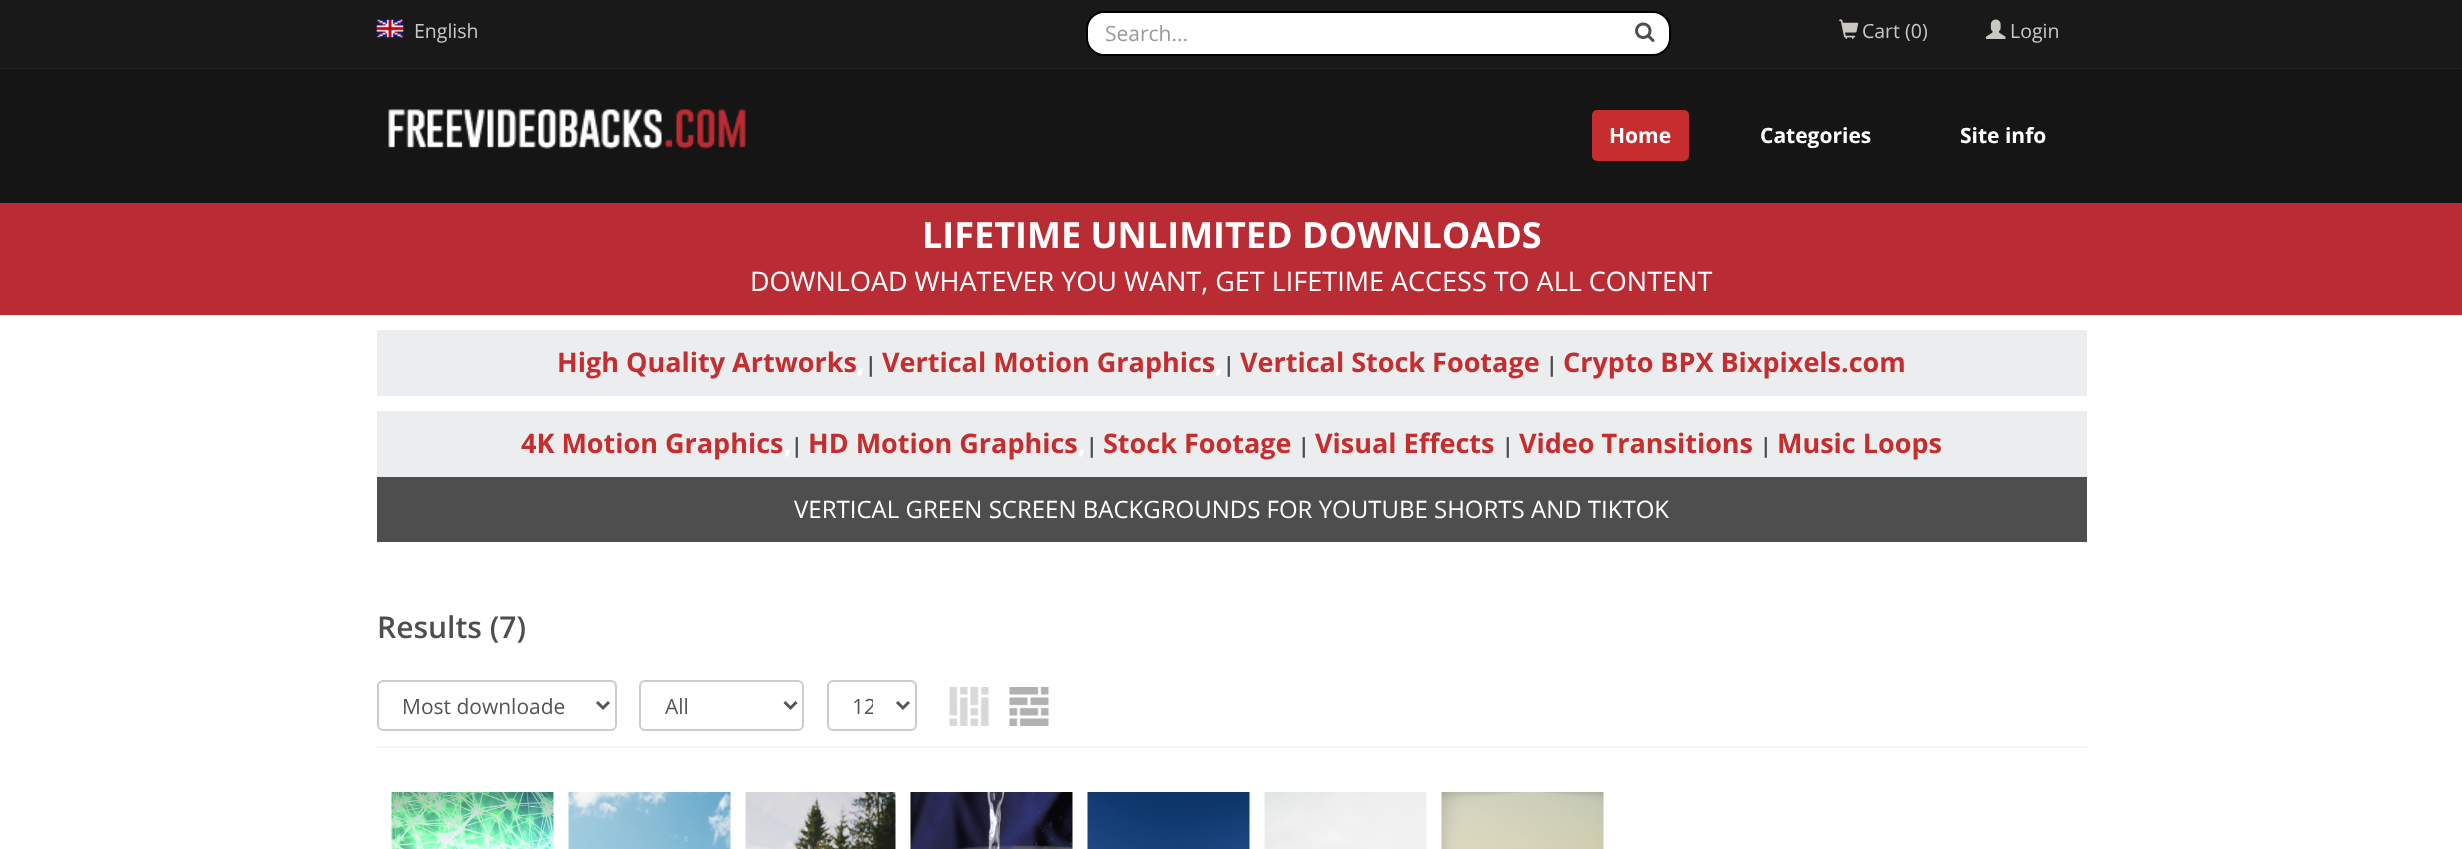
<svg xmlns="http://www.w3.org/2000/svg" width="2462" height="849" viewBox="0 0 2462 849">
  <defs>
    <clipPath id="clip1"><path d="M852 690h21v32H852z"/></clipPath>
  </defs>
  <rect width="100%" height="100%" fill="#fff"/>
  <path d="M0 0h2462v68H0z" fill="#191919"/>
  <path d="M0 68h2462v1H0z" fill="#222"/>
  <image x="376" y="19" width="28" height="19" href="img/1.png"/>
  <rect x="1087" y="12" width="583" height="43" rx="17" fill="#fff" stroke="#000" stroke-width="2"/>
  <image x="1635" y="22" width="20" height="20" href="img/2.png"/>
  <image x="1839" y="19" width="20" height="20" href="img/3.png"/>
  <image x="1986" y="19" width="20" height="20" href="img/4.png"/>
  <path d="M0 69h2462v134H0z" fill="#151515"/>
  <image x="388" y="109" width="358" height="40" href="img/5.png"/>
  <rect x="1592" y="110" width="97" height="51" rx="5" fill="#c52d2f"/>
  <path d="M0 203h2462v112H0z" fill="#b92c33"/>
  <path d="M377 330h1710v66H377z" fill="#ebedef"/>
  <path d="M377 411h1710v66H377z" fill="#ebedef"/>
  <path d="M377 477h1710v65H377z" fill="#4e4e4e"/>
  <path d="M377 746h1710v2H377z" fill="#f5f5f5"/>
  <path d="M382 682H610C613 682 615 685 615 687V686C615 683 613 681 610 681H383C380 681 378 683 378 686V687C378 685 380 682 382 682Z" fill="#ececec"/>
  <rect x="378" y="681" width="238" height="49" rx="5" fill="none" stroke="#ccc" stroke-width="2"/>
  <path d="M597 702L603 708L609 702" fill="none" stroke="#555" stroke-width="3"/>
  <path d="M645 682H772C780 682 800 677 802 686V727C803 726 803 725 803 724V686C803 683 801 681 798 681H646C644 681 642 682 641 684C642 683 644 682 645 682Z" fill="#ececec"/>
  <rect x="640" y="681" width="163" height="49" rx="5" fill="none" stroke="#ccc" stroke-width="2"/>
  <path d="M784.5 702L790.5 708L796.5 702" fill="none" stroke="#555" stroke-width="3"/>
  <path d="M832 682H910C913 682 915 685 915 687C915 678 903 681 897 681H846C840 681 828 678 828 687C828 685 830 682 832 682Z" fill="#ececec"/>
  <rect x="828" y="681" width="88" height="49" rx="5" fill="none" stroke="#ccc" stroke-width="2"/>
  <path d="M897 702L903 708L909 702" fill="none" stroke="#555" stroke-width="3"/>
  <image x="949" y="687" width="40" height="39" href="img/6.png"/>
  <image x="1009" y="687" width="40" height="39" href="img/7.png"/>
  <image x="391" y="792" width="163" height="57" href="img/8.png"/>
  <image x="568" y="792" width="163" height="57" href="img/9.png"/>
  <image x="745" y="792" width="151" height="57" href="img/10.png"/>
  <image x="910" y="792" width="163" height="57" href="img/11.png"/>
  <image x="1087" y="792" width="163" height="57" href="img/12.png"/>
  <image x="1264" y="792" width="163" height="57" href="img/13.png"/>
  <image x="1441" y="792" width="163" height="57" href="img/14.png"/>
  <text x="414" y="38" font-family="Open Sans" font-size="19.5" fill="#cbc7c2">English</text>
  <text x="1105" y="41" font-family="Open Sans" font-size="21" fill="#999">Search...</text>
  <g font-family="Open Sans" font-size="19.5" fill="#cbc7c2">
    <text x="1862" y="38">Cart (0)</text>
    <text x="2010" y="38">Login</text>
  </g>
  <g font-family="Open Sans" font-size="21" font-weight="bold" fill="#fff">
    <text x="1609" y="143">Home</text>
    <text x="1760" y="143">Categories</text>
    <text x="1960" y="143">Site info</text>
  </g>
  <text x="922" y="248" font-family="Open Sans" font-size="36" font-weight="bold" fill="#fff">LIFETIME UNLIMITED DOWNLOADS</text>
  <text x="750" y="291" font-family="Open Sans" font-size="27" fill="#fff">DOWNLOAD WHATEVER YOU WANT, GET LIFETIME ACCESS TO ALL CONTENT</text>
  <text x="557" y="372" font-family="Open Sans" font-size="27" font-weight="bold" fill="#c52d2f">High Quality Artworks</text>
  <text x="857" y="372" font-family="Open Sans" font-size="27" font-weight="bold" fill="#fff">,</text>
  <text x="865" y="372" font-family="Open Sans" font-size="21" font-weight="bold" fill="#4e4e4e">|</text>
  <text x="882" y="372" font-family="Open Sans" font-size="27" font-weight="bold" fill="#c52d2f">Vertical Motion Graphics</text>
  <text x="1215" y="372" font-family="Open Sans" font-size="27" font-weight="bold" fill="#fff">,</text>
  <text x="1223" y="372" font-family="Open Sans" font-size="21" font-weight="bold" fill="#4e4e4e">|</text>
  <text x="1240" y="372" font-family="Open Sans" font-size="27" font-weight="bold" fill="#c52d2f">Vertical Stock Footage</text>
  <text x="1546" y="372" font-family="Open Sans" font-size="21" font-weight="bold" fill="#4e4e4e">|</text>
  <g font-family="Open Sans" font-size="27" font-weight="bold" fill="#c52d2f">
    <text x="1563" y="372">Crypto BPX Bixpixels.com</text>
    <text x="521" y="453">4K Motion Graphics</text>
  </g>
  <text x="784" y="453" font-family="Open Sans" font-size="27" font-weight="bold" fill="#fff">,</text>
  <text x="791" y="453" font-family="Open Sans" font-size="21" font-weight="bold" fill="#4e4e4e">|</text>
  <text x="808" y="453" font-family="Open Sans" font-size="27" font-weight="bold" fill="#c52d2f">HD Motion Graphics</text>
  <text x="1078" y="453" font-family="Open Sans" font-size="27" font-weight="bold" fill="#fff">,</text>
  <text x="1086" y="453" font-family="Open Sans" font-size="21" font-weight="bold" fill="#4e4e4e">|</text>
  <text x="1103" y="453" font-family="Open Sans" font-size="27" font-weight="bold" fill="#c52d2f">Stock Footage</text>
  <text x="1298" y="453" font-family="Open Sans" font-size="21" font-weight="bold" fill="#4e4e4e">|</text>
  <text x="1315" y="453" font-family="Open Sans" font-size="27" font-weight="bold" fill="#c52d2f">Visual Effects</text>
  <text x="1502" y="453" font-family="Open Sans" font-size="21" font-weight="bold" fill="#4e4e4e">|</text>
  <text x="1519" y="453" font-family="Open Sans" font-size="27" font-weight="bold" fill="#c52d2f">Video Transitions</text>
  <text x="1760" y="453" font-family="Open Sans" font-size="21" font-weight="bold" fill="#4e4e4e">|</text>
  <text x="1777" y="453" font-family="Open Sans" font-size="27" font-weight="bold" fill="#c52d2f">Music Loops</text>
  <text x="794" y="518" font-family="Open Sans" font-size="24" fill="#fff">VERTICAL GREEN SCREEN BACKGROUNDS FOR YOUTUBE SHORTS AND TIKTOK</text>
  <text x="377" y="638" font-family="Open Sans" font-size="30" font-weight="600" fill="#4e4e4e">Results (7)</text>
  <g font-family="Open Sans" font-size="21" fill="#555">
    <text x="402" y="714">Most downloade</text>
    <text x="665" y="714">All</text>
  </g>
  <g clip-path="url(#clip1)">
    <text x="852" y="714" font-family="Open Sans" font-size="21" fill="#555">12</text>
  </g>
</svg>
